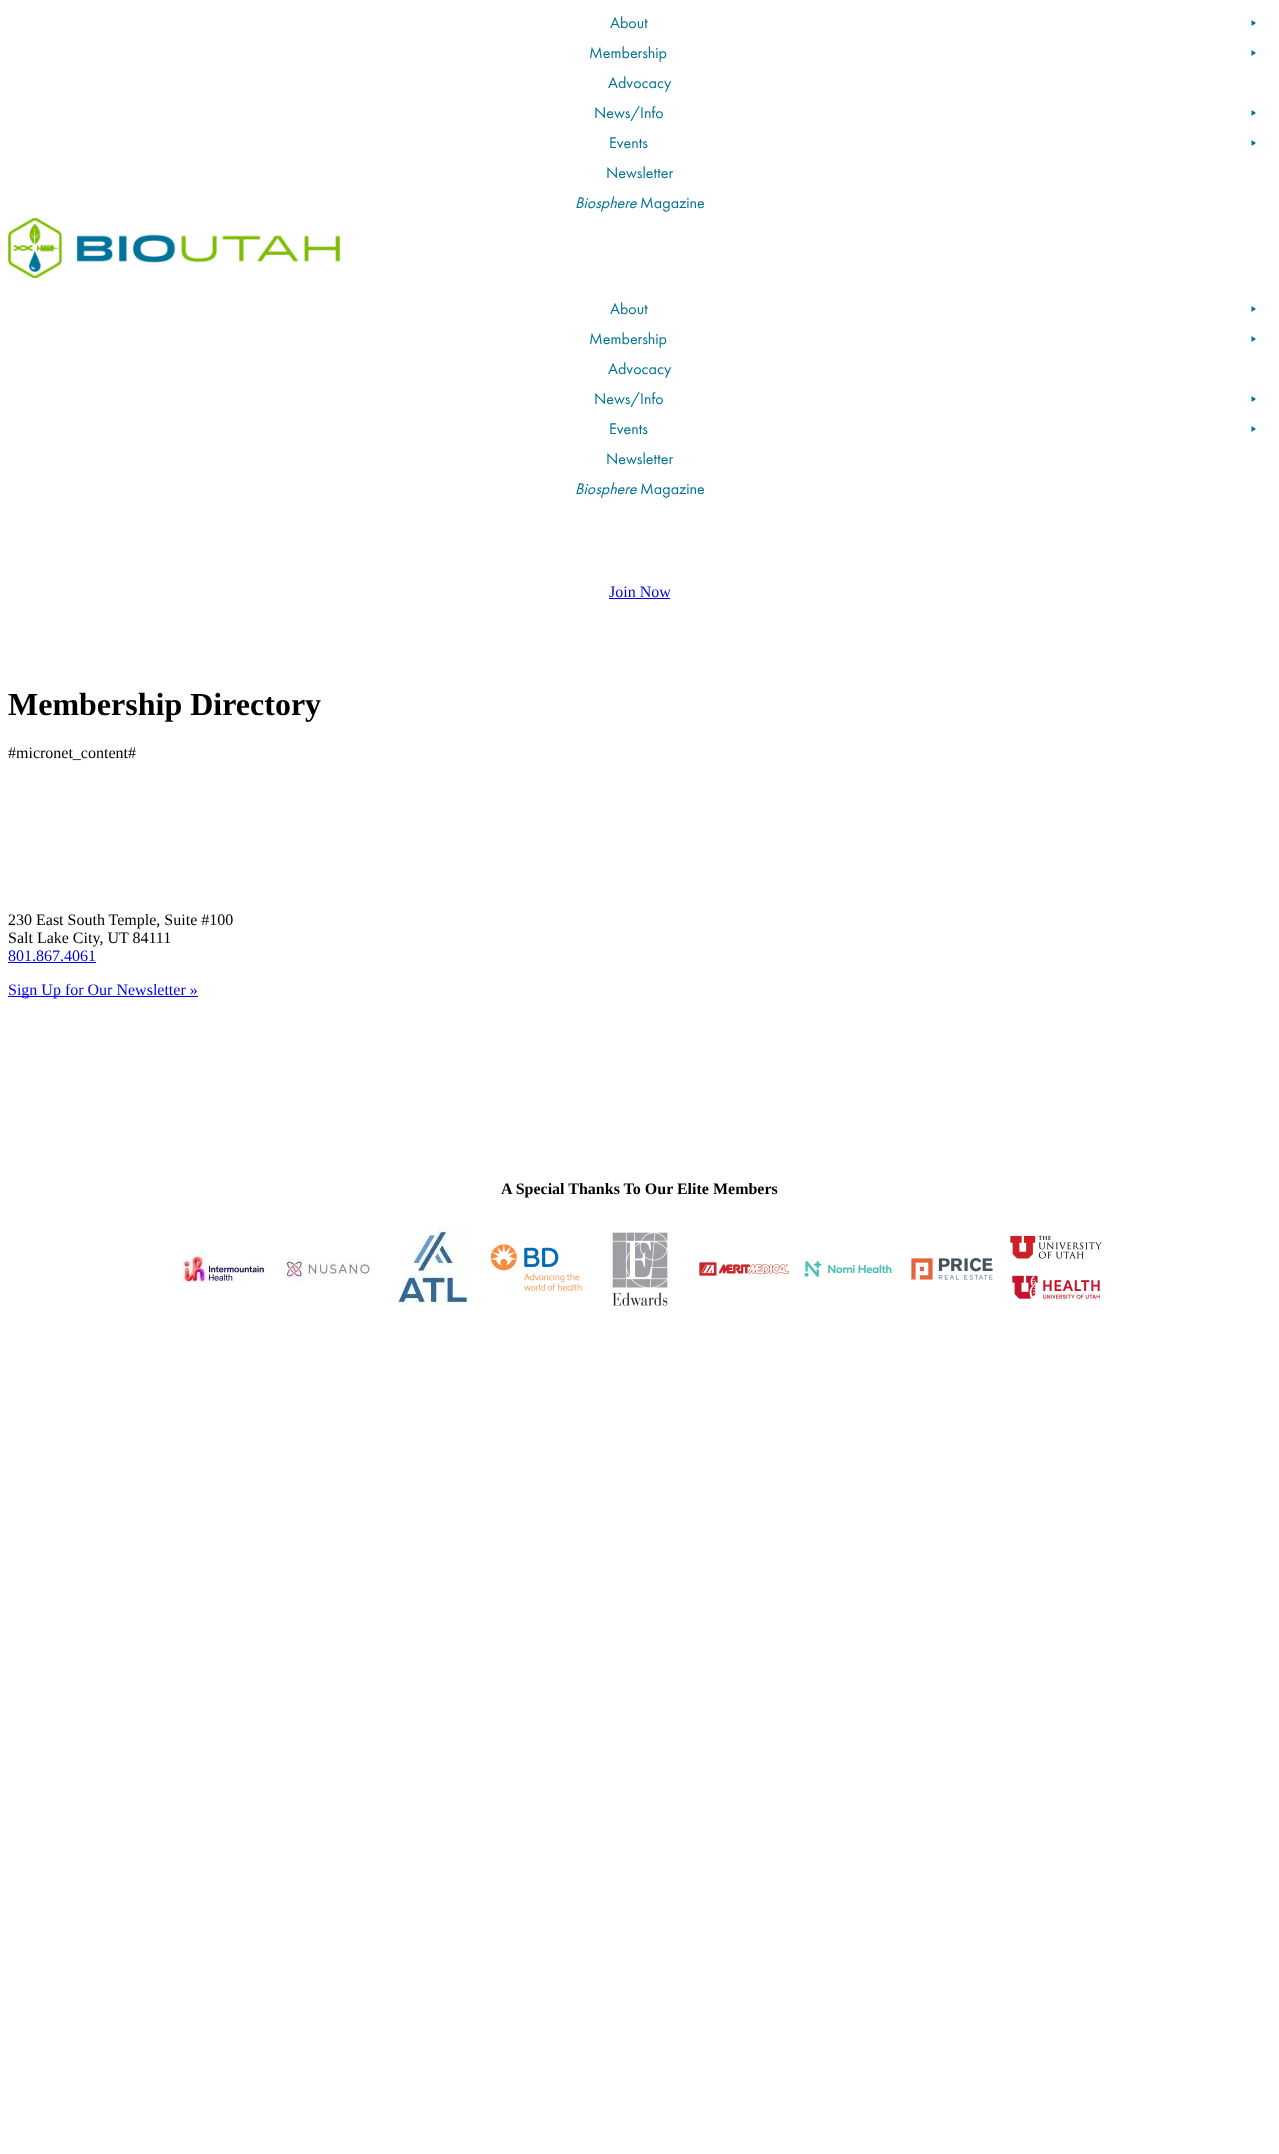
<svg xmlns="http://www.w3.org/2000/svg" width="1279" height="2154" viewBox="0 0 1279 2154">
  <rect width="100%" height="100%" fill="#fff"/>
  <path d="M1251.5 20L1256 23L1251.5 26Z" fill="#007298"/>
  <path d="M1251.5 50L1256 53L1251.5 56Z" fill="#007298"/>
  <path d="M1251.5 110L1256 113L1251.5 116Z" fill="#007298"/>
  <path d="M1251.5 140L1256 143L1251.5 146Z" fill="#007298"/>
  <image x="8" y="218" width="332" height="60" href="img/1.png"/>
  <path d="M1251.5 306L1256 309L1251.5 312Z" fill="#007298"/>
  <path d="M1251.5 336L1256 339L1251.5 342Z" fill="#007298"/>
  <path d="M1251.5 396L1256 399L1251.5 402Z" fill="#007298"/>
  <path d="M1251.5 426L1256 429L1251.5 432Z" fill="#007298"/>
  <path d="M609 598h61v1H609z" fill="#00e"/>
  <path d="M8 962h88v1H8z" fill="#00e"/>
  <path d="M8 996h190v1H8z" fill="#00e"/>
  <image x="181" y="1251" width="89" height="32" href="img/2.png"/>
  <image x="286" y="1259" width="84" height="24" href="img/3.png"/>
  <image x="397" y="1227" width="74" height="80" href="img/4.png"/>
  <image x="490" y="1244" width="92" height="47" href="img/5.png"/>
  <image x="612" y="1232" width="56" height="74" href="img/6.png"/>
  <image x="699" y="1262" width="90" height="14" href="img/7.png"/>
  <image x="804" y="1261" width="88" height="16" href="img/8.png"/>
  <image x="911" y="1258" width="82" height="22" href="img/9.png"/>
  <image x="1010" y="1235" width="92" height="64" href="img/10.png"/>
  <g font-family="Futura PT" font-size="16" fill="#007298">
    <text x="610" y="28">About</text>
    <text x="589" y="58">Membership</text>
    <text x="608" y="88">Advocacy</text>
    <text x="594" y="118">News/Info</text>
    <text x="609" y="148">Events</text>
    <text x="606" y="178">Newsletter</text>
  </g>
  <text x="575" y="208" font-family="Futura PT" font-size="16" font-style="italic" fill="#007298">Biosphere</text>
  <g font-family="Futura PT" font-size="16" fill="#007298">
    <text x="640" y="208">Magazine</text>
    <text x="610" y="314">About</text>
    <text x="589" y="344">Membership</text>
    <text x="608" y="374">Advocacy</text>
    <text x="594" y="404">News/Info</text>
    <text x="609" y="434">Events</text>
    <text x="606" y="464">Newsletter</text>
  </g>
  <text x="575" y="494" font-family="Futura PT" font-size="16" font-style="italic" fill="#007298">Biosphere</text>
  <text x="640" y="494" font-family="Futura PT" font-size="16" fill="#007298">Magazine</text>
  <text x="609" y="597" font-family="Liberation Serif" font-size="16" fill="#00e">Join Now</text>
  <text x="8" y="715" font-family="Liberation Serif" font-size="32" font-weight="bold" fill="#000">Membership Directory</text>
  <g font-family="Liberation Serif" font-size="16" fill="#000">
    <text x="8" y="758">#micronet_content#</text>
    <text x="8" y="925">230 East South Temple, Suite #100</text>
    <text x="8" y="943">Salt Lake City, UT 84111</text>
  </g>
  <g font-family="Liberation Serif" font-size="16" fill="#00e">
    <text x="8" y="961">801.867.4061</text>
    <text x="8" y="995">Sign Up for Our Newsletter »</text>
  </g>
  <text x="501" y="1194" font-family="Liberation Serif" font-size="16" font-weight="bold" fill="#000">A Special Thanks To Our Elite Members</text>
</svg>
